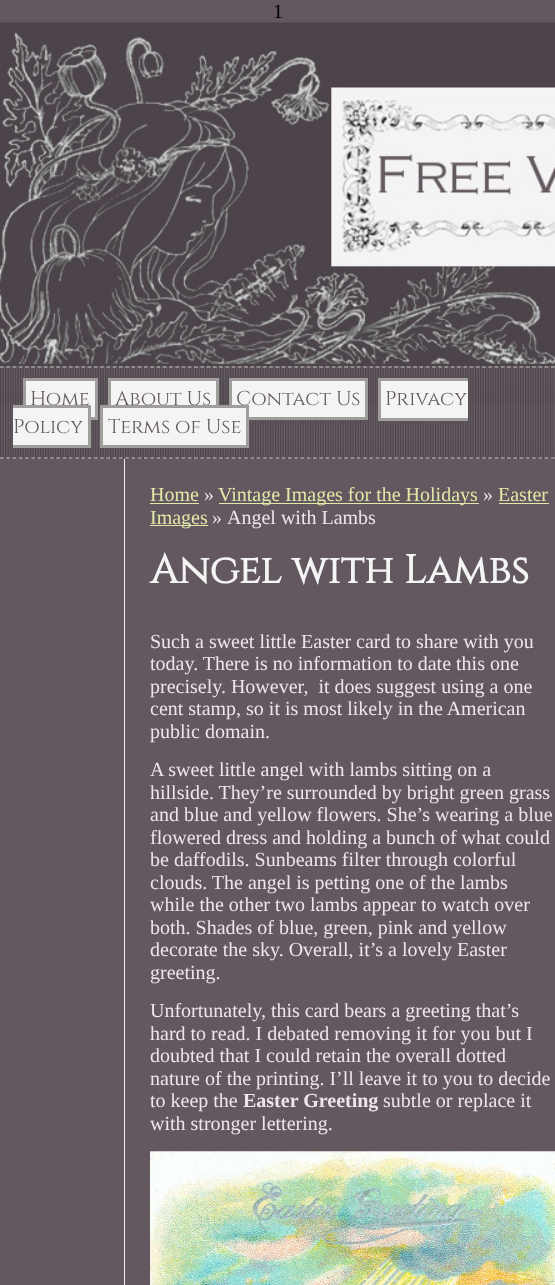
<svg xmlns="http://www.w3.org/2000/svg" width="555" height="1285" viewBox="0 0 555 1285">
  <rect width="100%" height="100%" fill="#635860"/>
  <path d="M0 363h555v96H0z" fill="#4c444a"/>
  <image x="0" y="22" width="555" height="342" href="img/1.png"/>
  <image x="0" y="366" width="555" height="93" href="img/2.png"/>
  <path d="M0 367H555" fill="none" stroke="#c5c5c0" stroke-width="1.2" stroke-dasharray="3.75 2.51"/>
  <path d="M0 458H555" fill="none" stroke="#c5c5c0" stroke-width="1.2" stroke-dasharray="3.75 2.51"/>
  <path d="M24.5 379.5h72v39H24.5z" fill="#f4f4f4" stroke="#a09e9c" stroke-width="3"/>
  <path d="M111 381h105v24H111z" fill="#f4f4f4"/>
  <path d="M109.5 379.5h108v39H109.5z" fill="none" stroke="#a09e9c" stroke-width="3"/>
  <path d="M230.5 379.5h136v39H230.5z" fill="#f4f4f4" stroke="#a09e9c" stroke-width="3"/>
  <path d="M381 381h87v37H381z" fill="#f4f4f4"/>
  <path d="M378 378h90v3H378z" fill="#a09e9c"/>
  <path d="M378 418h90v3H378z" fill="#a09e9c"/>
  <path d="M378 378h3v42H378z" fill="#a09e9c"/>
  <path d="M13 408h75v37H13z" fill="#f4f4f4"/>
  <path d="M124 459h1v826H124z" fill="#eee"/>
  <path d="M150 503h49v1H150z" fill="#e1e9a9"/>
  <path d="M219 503h260v1H219z" fill="#e1e9a9"/>
  <path d="M499 503h50v1H499z" fill="#e1e9a9"/>
  <path d="M150 525h58v1H150z" fill="#e1e9a9"/>
  <image x="150" y="1151" width="405" height="134" href="img/3.png"/>
  <text x="273" y="18" font-family="Liberation Serif" font-size="20" fill="#000">1</text>
  <g font-family="Cinzel" font-size="20" fill="#635860">
    <text x="30" y="405">Home</text>
    <text x="115" y="405">About Us</text>
    <text x="236" y="405">Contact Us</text>
    <text x="385" y="405">Privacy</text>
    <text x="13" y="433">Policy</text>
  </g>
  <path d="M13 405h77v3H13z" fill="#a09e9c"/>
  <path d="M88 405h3v43H88z" fill="#a09e9c"/>
  <path d="M13 445h77v3H13z" fill="#a09e9c"/>
  <path d="M101.5 406.5h146v40H101.5z" fill="#f4f4f4" stroke="#a09e9c" stroke-width="3"/>
  <text x="108" y="433" font-family="Cinzel" font-size="20" fill="#635860">Terms of Use</text>
  <text x="150" y="501" font-family="Liberation Serif" font-size="20" fill="#e1e9a9">Home</text>
  <text x="204" y="501" font-family="Liberation Serif" font-size="20" fill="#ece6e9">»</text>
  <text x="218" y="501" font-family="Liberation Serif" font-size="20" fill="#e1e9a9">Vintage Images for the Holidays</text>
  <text x="483" y="501" font-family="Liberation Serif" font-size="20" fill="#ece6e9">»</text>
  <g font-family="Liberation Serif" font-size="20" fill="#e1e9a9">
    <text x="498" y="501">Easter</text>
    <text x="150" y="524">Images</text>
  </g>
  <g font-family="Liberation Serif" font-size="20" fill="#ece6e9">
    <text x="212" y="524">»</text>
    <text x="227" y="524">Angel with Lambs</text>
  </g>
  <text x="150" y="583" font-family="Cinzel" font-size="40" font-weight="bold" fill="#f4f4f4">Angel with Lambs</text>
  <g font-family="Liberation Serif" font-size="20" fill="#ece6e9">
    <text x="150" y="648">Such a sweet little Easter card to share with you</text>
    <text x="150" y="670">today. There is no information to date this one</text>
    <text x="150" y="693" xml:space="preserve">precisely. However,  it does suggest using a one</text>
    <text x="150" y="715">cent stamp, so it is most likely in the American</text>
    <text x="150" y="738">public domain.</text>
    <text x="150" y="776">A sweet little angel with lambs sitting on a</text>
    <text x="150" y="799">hillside. They’re surrounded by bright green grass</text>
    <text x="150" y="821">and blue and yellow flowers. She’s wearing a blue</text>
    <text x="150" y="844">flowered dress and holding a bunch of what could</text>
    <text x="150" y="866">be daffodils. Sunbeams filter through colorful</text>
    <text x="150" y="889">clouds. The angel is petting one of the lambs</text>
    <text x="150" y="911">while the other two lambs appear to watch over</text>
    <text x="150" y="934">both. Shades of blue, green, pink and yellow</text>
    <text x="150" y="956">decorate the sky. Overall, it’s a lovely Easter</text>
    <text x="150" y="979">greeting.</text>
    <text x="150" y="1017">Unfortunately, this card bears a greeting that’s</text>
    <text x="150" y="1040">hard to read. I debated removing it for you but I</text>
    <text x="150" y="1062">doubted that I could retain the overall dotted</text>
    <text x="150" y="1085">nature of the printing. I’ll leave it to you to decide</text>
    <text x="150" y="1107">to keep the</text>
  </g>
  <text x="243" y="1107" font-family="Liberation Serif" font-size="20" font-weight="bold" fill="#ece6e9">Easter Greeting</text>
  <g font-family="Liberation Serif" font-size="20" fill="#ece6e9">
    <text x="383" y="1107">subtle or replace it</text>
    <text x="150" y="1130">with stronger lettering.</text>
  </g>
</svg>
